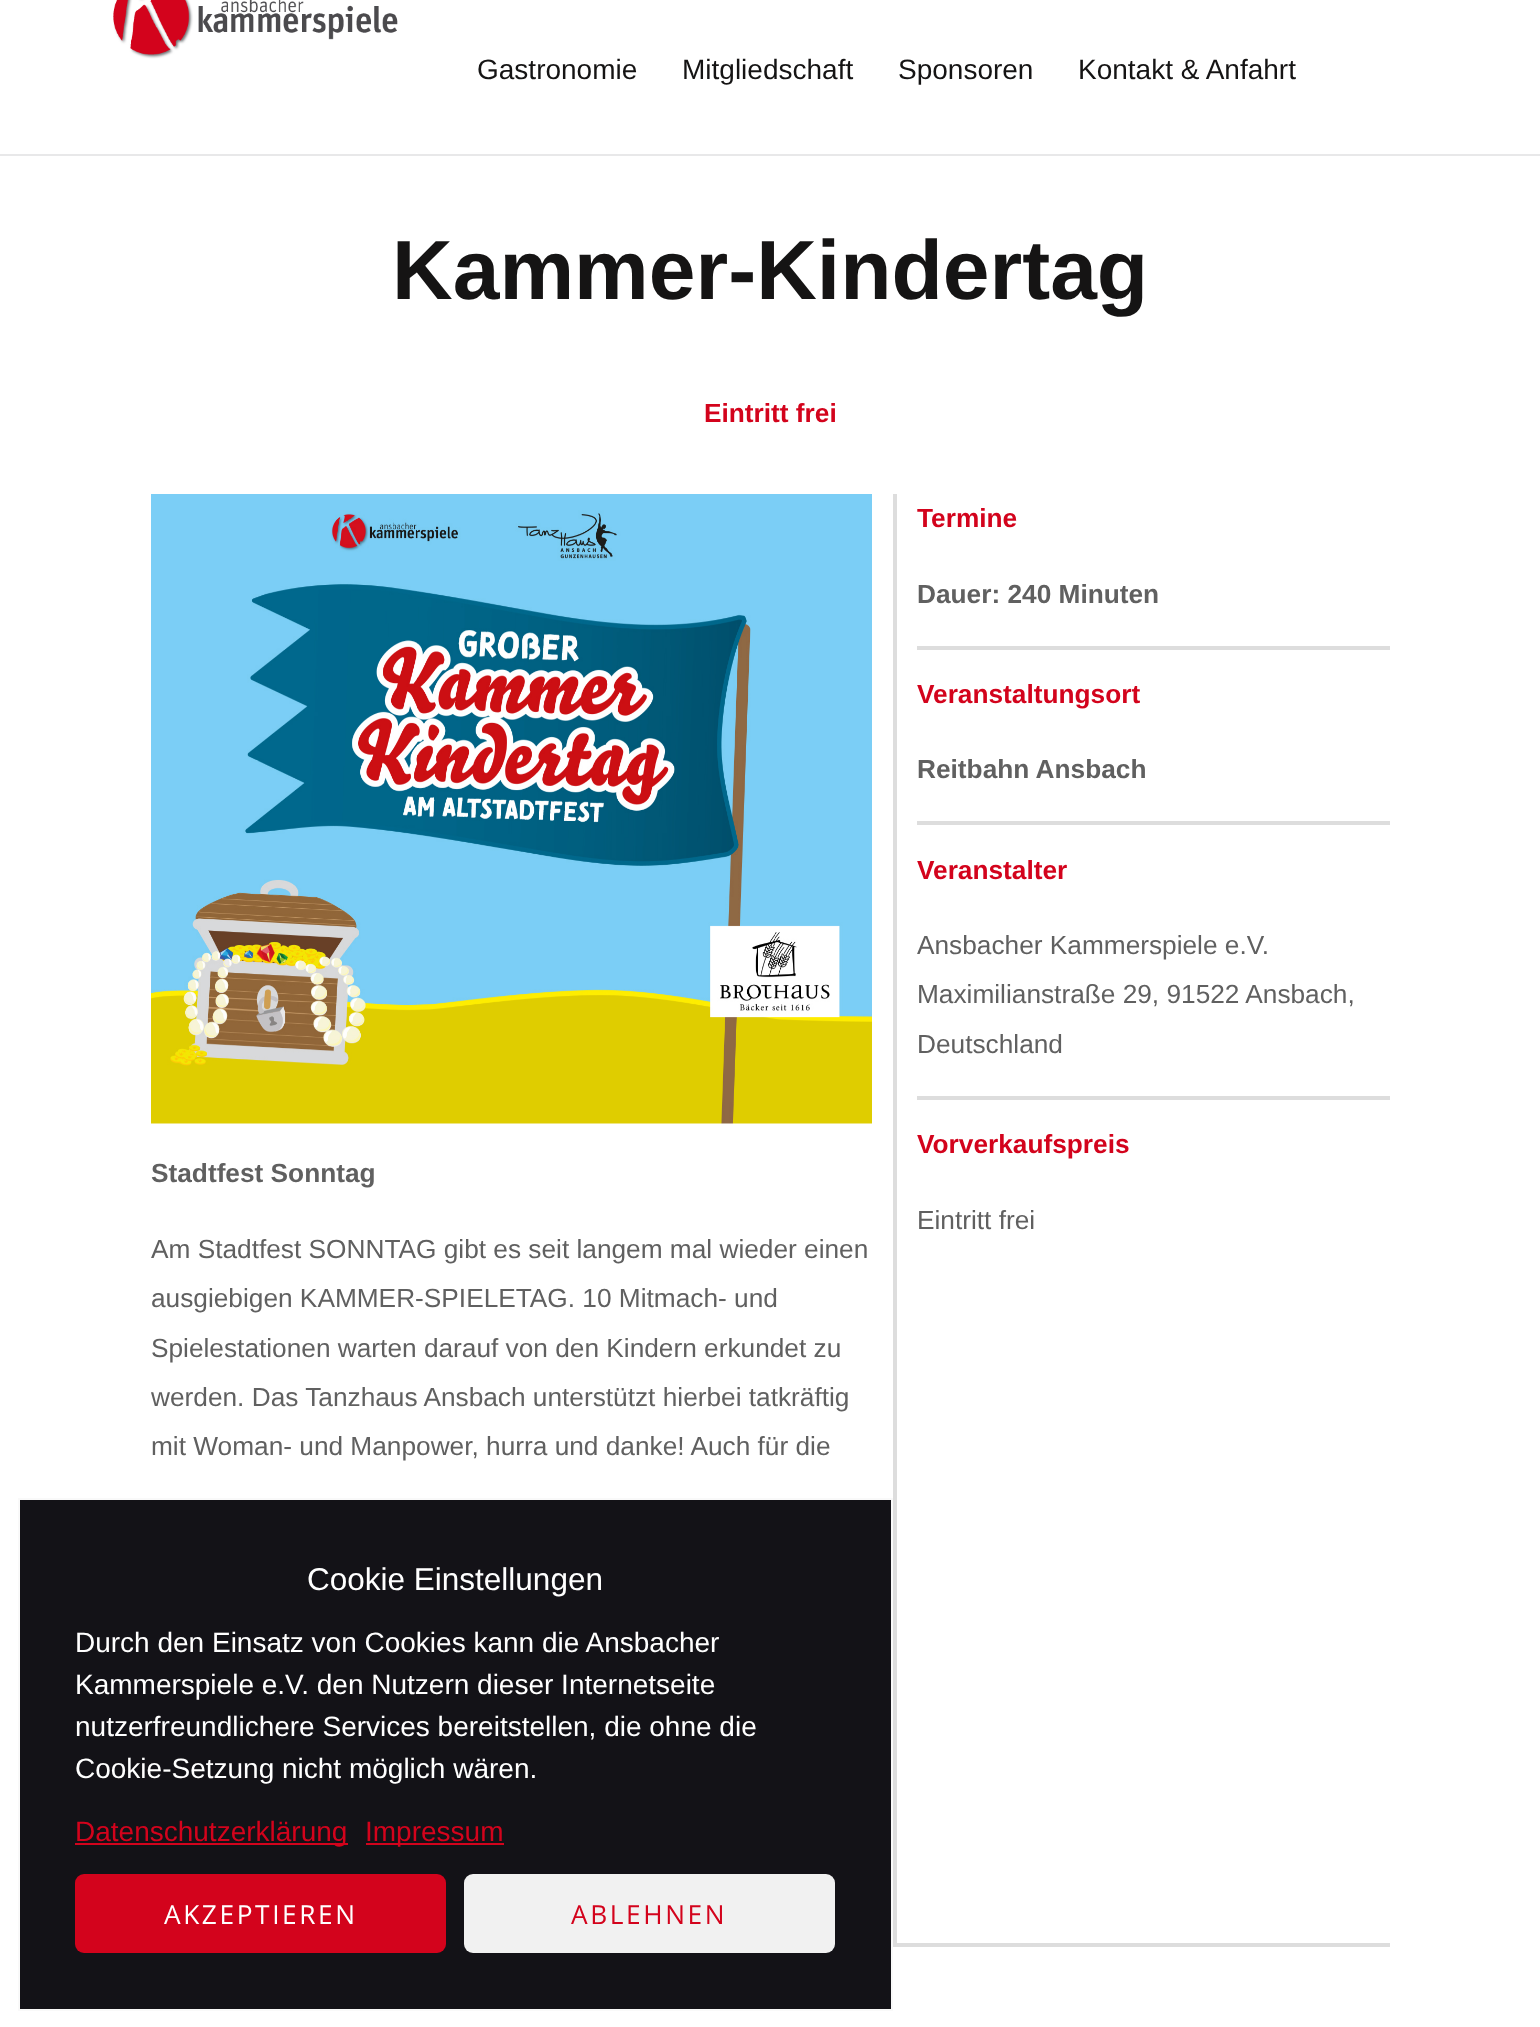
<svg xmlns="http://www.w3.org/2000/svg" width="1540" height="2027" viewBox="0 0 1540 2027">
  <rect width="100%" height="100%" fill="#fff"/>
  <path d="M0 154h1540v2H0z" fill="#e8e8e9"/>
  <image x="113" y="0" width="285" height="59" href="img/1.png"/>
  <path d="M893 494h4v1449H893z" fill="#ddd"/>
  <path d="M917 646h473v4H917z" fill="#ddd"/>
  <path d="M917 821h473v4H917z" fill="#ddd"/>
  <path d="M917 1096h473v4H917z" fill="#ddd"/>
  <image x="151" y="494" width="721" height="630" href="img/2.png"/>
  <path d="M893 1943h497v4H893z" fill="#ddd"/>
  <path d="M19 1499h873v511H19z" fill="#131217" stroke="#f9f9f9" stroke-width="2"/>
  <path d="M75 1843h273v2H75z" fill="#d3031c"/>
  <path d="M366 1843h138v2H366z" fill="#d3031c"/>
  <rect x="75" y="1874" width="371" height="79" rx="9" fill="#d3031c"/>
  <rect x="464" y="1874" width="371" height="79" rx="9" fill="#f1f1f1"/>
  <g font-family="Liberation Sans" font-size="28" fill="#151414">
    <text x="477" y="79">Gastronomie</text>
    <text x="682" y="79">Mitgliedschaft</text>
    <text x="898" y="79">Sponsoren</text>
    <text x="1078" y="79">Kontakt &amp; Anfahrt</text>
  </g>
  <text x="392" y="299" font-family="Liberation Sans" font-size="84" font-weight="bold" fill="#151414">Kammer-Kindertag</text>
  <g font-family="Liberation Sans" font-size="26.25" font-weight="bold" fill="#d3031c">
    <text x="704" y="422">Eintritt frei</text>
    <text x="917" y="527">Termine</text>
  </g>
  <text x="917" y="603" font-family="Liberation Sans" font-size="26.25" font-weight="bold" fill="#606060">Dauer: 240 Minuten</text>
  <text x="917" y="703" font-family="Liberation Sans" font-size="26.25" font-weight="bold" fill="#d3031c">Veranstaltungsort</text>
  <text x="917" y="778" font-family="Liberation Sans" font-size="26.25" font-weight="bold" fill="#606060">Reitbahn Ansbach</text>
  <text x="917" y="879" font-family="Liberation Sans" font-size="26.25" font-weight="bold" fill="#d3031c">Veranstalter</text>
  <g font-family="Liberation Sans" font-size="26.25" fill="#606060">
    <text x="917" y="954">Ansbacher Kammerspiele e.V.</text>
    <text x="917" y="1003">Maximilianstraße 29, 91522 Ansbach,</text>
    <text x="917" y="1053">Deutschland</text>
  </g>
  <text x="917" y="1153" font-family="Liberation Sans" font-size="26.25" font-weight="bold" fill="#d3031c">Vorverkaufspreis</text>
  <text x="917" y="1229" font-family="Liberation Sans" font-size="26.25" fill="#606060">Eintritt frei</text>
  <text x="151" y="1182" font-family="Liberation Sans" font-size="26.25" font-weight="bold" fill="#606060">Stadtfest Sonntag</text>
  <g font-family="Liberation Sans" font-size="26.25" fill="#606060">
    <text x="151" y="1258">Am Stadtfest SONNTAG gibt es seit langem mal wieder einen</text>
    <text x="151" y="1307">ausgiebigen KAMMER-SPIELETAG. 10 Mitmach- und</text>
    <text x="151" y="1357">Spielestationen warten darauf von den Kindern erkundet zu</text>
    <text x="151" y="1406">werden. Das Tanzhaus Ansbach unterstützt hierbei tatkräftig</text>
    <text x="151" y="1455">mit Woman- und Manpower, hurra und danke! Auch für die</text>
  </g>
  <text x="307" y="1590" font-family="Liberation Sans" font-size="31.5" fill="#fff">Cookie Einstellungen</text>
  <g font-family="Liberation Sans" font-size="28" fill="#fff">
    <text x="75" y="1652">Durch den Einsatz von Cookies kann die Ansbacher</text>
    <text x="75" y="1694">Kammerspiele e.V. den Nutzern dieser Internetseite</text>
    <text x="75" y="1736">nutzerfreundlichere Services bereitstellen, die ohne die</text>
    <text x="75" y="1778">Cookie-Setzung nicht möglich wären.</text>
  </g>
  <g font-family="Liberation Sans" font-size="28" fill="#d3031c">
    <text x="75" y="1841">Datenschutzerklärung</text>
    <text x="365" y="1841">Impressum</text>
  </g>
  <text x="164" y="1924" font-family="Open Sans" font-size="26.25" letter-spacing="2.6" fill="#fff">AKZEPTIEREN</text>
  <text x="571" y="1924" font-family="Open Sans" font-size="26.25" letter-spacing="2.6" fill="#d3031c">ABLEHNEN</text>
</svg>
